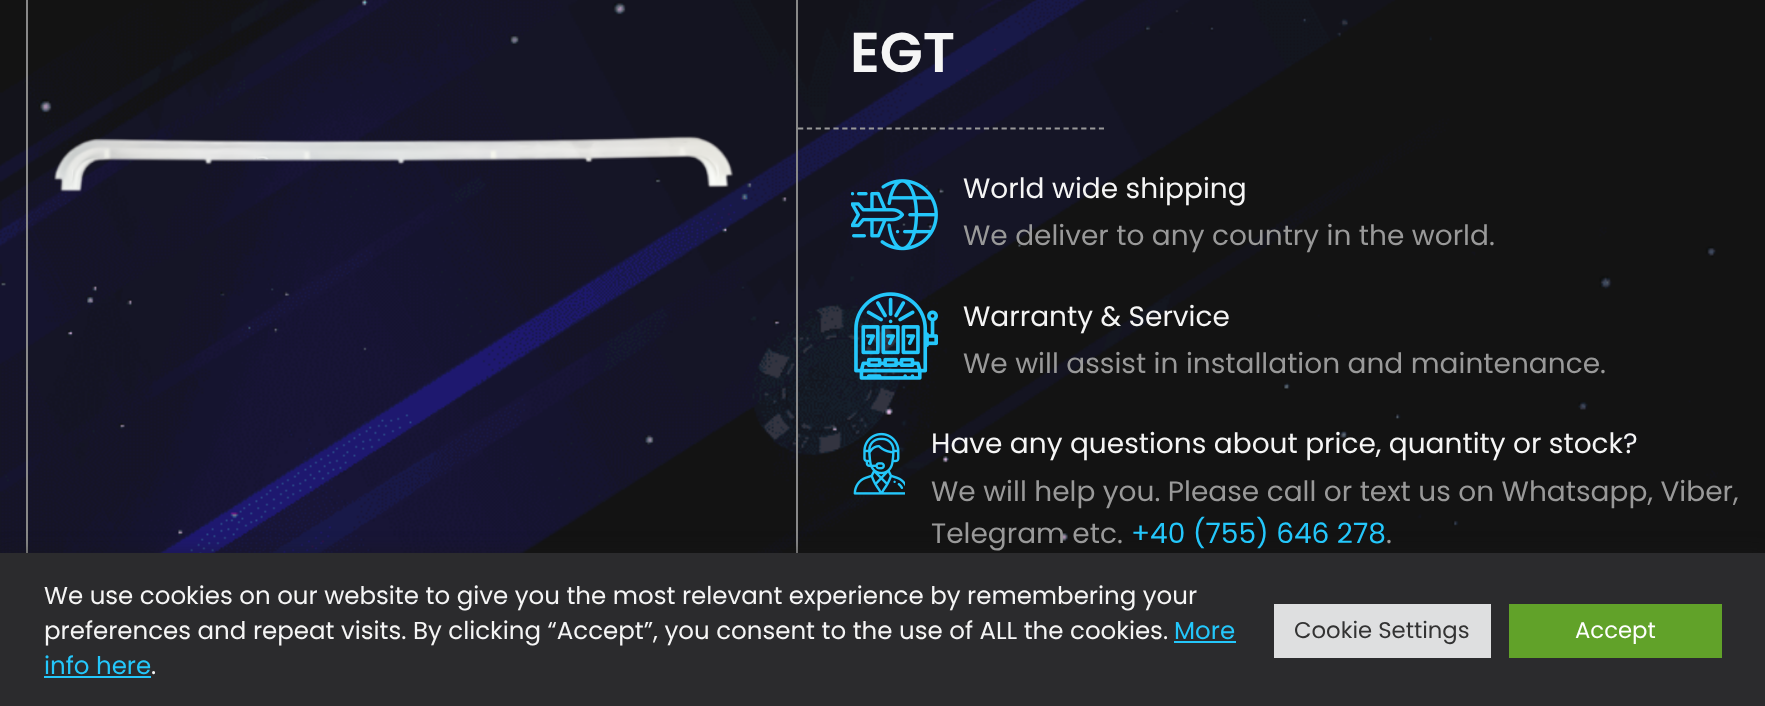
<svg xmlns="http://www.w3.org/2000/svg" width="1765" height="706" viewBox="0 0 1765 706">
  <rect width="100%" height="100%" fill="#131313"/>
  <image x="0" y="0" width="1718" height="553" href="img/1.png"/>
  <path d="M27 -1h770v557H27z" fill="none" stroke="#888" stroke-width="2"/>
  <image x="54" y="136" width="680" height="56" href="img/2.png"/>
  <path d="M798 128.5H1104" fill="none" stroke="#999" stroke-width="1.8" stroke-dasharray="5.25 3.6"/>
  <image x="851" y="179" width="87" height="72" href="img/3.png"/>
  <image x="854" y="292" width="84" height="88" href="img/4.png"/>
  <image x="853" y="432" width="52" height="63" href="img/5.png"/>
  <path d="M0 551h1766v154H0z" fill="#1a1a1a66" filter="blur(9px)"/>
  <path d="M0 553h1765v153H0z" fill="#2b2b2d"/>
  <path d="M1174 641h62v2H1174z" fill="#24c7fb"/>
  <path d="M44 676h107v2H44z" fill="#24c7fb"/>
  <path d="M1274 604h217v54H1274z" fill="#dedfe0"/>
  <path d="M1509 604h213v54H1509z" fill="#61a229"/>
  <text x="850" y="72" font-family="Poppins" font-size="56" font-weight="600" fill="#f5f5f5">EGT</text>
  <text x="963" y="198" font-family="Poppins" font-size="28" fill="#f5f5f5">World wide shipping</text>
  <text x="963" y="245" font-family="Poppins" font-size="28" fill="#999">We deliver to any country in the world.</text>
  <text x="963" y="326" font-family="Poppins" font-size="28" fill="#f5f5f5">Warranty &amp; Service</text>
  <text x="963" y="373" font-family="Poppins" font-size="28" fill="#999">We will assist in installation and maintenance.</text>
  <text x="931" y="453" font-family="Poppins" font-size="28" fill="#f5f5f5">Have any questions about price, quantity or stock?</text>
  <g font-family="Poppins" font-size="28" fill="#999">
    <text x="931" y="501">We will help you. Please call or text us on Whatsapp, Viber,</text>
    <text x="931" y="543">Telegram etc.</text>
  </g>
  <text x="1131" y="543" font-family="Poppins" font-size="28" fill="#24c7fb">+40 (755) 646 278</text>
  <text x="1386" y="543" font-family="Poppins" font-size="28" fill="#999">.</text>
  <g font-family="Poppins" font-size="24.5" fill="#f5f5f5">
    <text x="44" y="604">We use cookies on our website to give you the most relevant experience by remembering your</text>
    <text x="44" y="639">preferences and repeat visits. By clicking “Accept”, you consent to the use of ALL the cookies.</text>
  </g>
  <g font-family="Poppins" font-size="24.5" fill="#24c7fb">
    <text x="1174" y="639">More</text>
    <text x="44" y="674">info here</text>
  </g>
  <text x="151" y="674" font-family="Poppins" font-size="24.5" fill="#f5f5f5">.</text>
  <text x="1294" y="638" font-family="Poppins" font-size="22.75" fill="#333">Cookie Settings</text>
  <text x="1575" y="638" font-family="Poppins" font-size="22.75" fill="#fff">Accept</text>
</svg>
